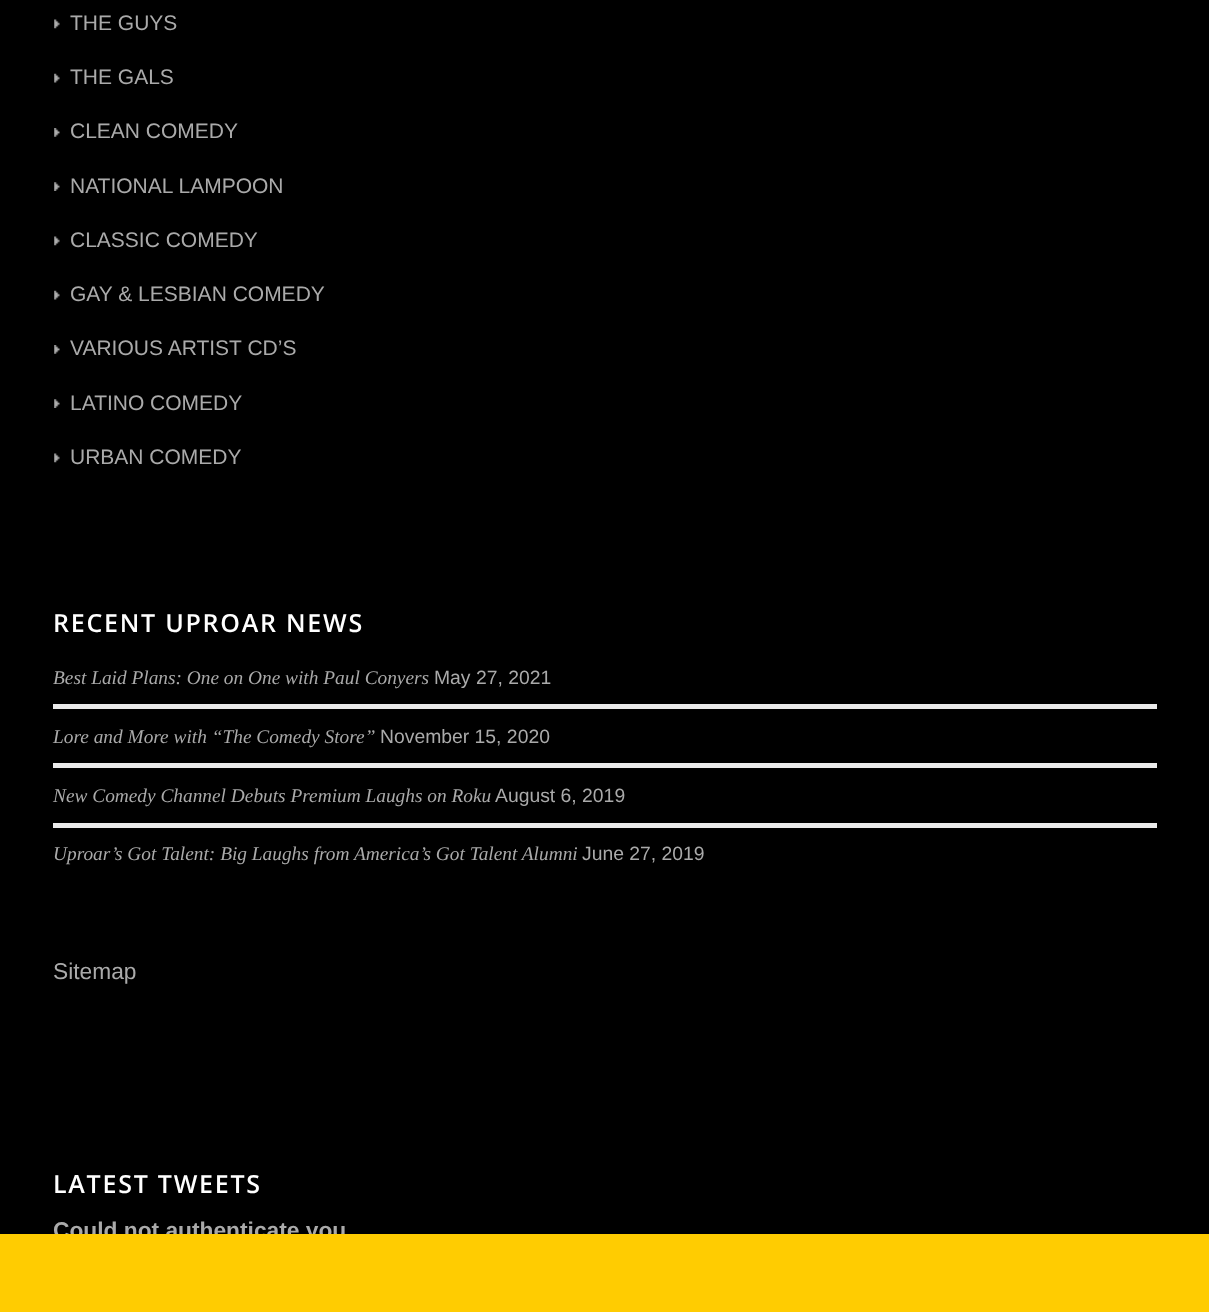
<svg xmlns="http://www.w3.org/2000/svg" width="1209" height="1312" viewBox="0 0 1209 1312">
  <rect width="100%" height="100%" fill="#000"/>
  <image x="54" y="19" width="6" height="10" href="img/1.png"/>
  <image x="54" y="73" width="6" height="10" href="img/2.png"/>
  <image x="54" y="128" width="6" height="9" href="img/3.png"/>
  <image x="54" y="182" width="6" height="9" href="img/4.png"/>
  <image x="54" y="236" width="6" height="10" href="img/1.png"/>
  <image x="54" y="290" width="6" height="10" href="img/2.png"/>
  <image x="54" y="345" width="6" height="9" href="img/3.png"/>
  <image x="54" y="399" width="6" height="9" href="img/4.png"/>
  <image x="54" y="453" width="6" height="10" href="img/1.png"/>
  <path d="M53 704h1104v5H53z" fill="#ebebeb"/>
  <path d="M53 763h1104v5H53z" fill="#ebebeb"/>
  <path d="M53 823h1104v5H53z" fill="#ebebeb"/>
  <g font-family="Liberation Sans" font-size="21" fill="#aaa">
    <text x="70" y="30">THE GUYS</text>
    <text x="70" y="84">THE GALS</text>
    <text x="70" y="138">CLEAN COMEDY</text>
    <text x="70" y="193">NATIONAL LAMPOON</text>
    <text x="70" y="247">CLASSIC COMEDY</text>
    <text x="70" y="301">GAY &amp; LESBIAN COMEDY</text>
    <text x="70" y="355">VARIOUS ARTIST CD’S</text>
    <text x="70" y="410">LATINO COMEDY</text>
    <text x="70" y="464">URBAN COMEDY</text>
  </g>
  <text x="53" y="632" font-family="Open Sans" font-size="25" font-weight="600" letter-spacing="1.75" fill="#fff">RECENT UPROAR NEWS</text>
  <text x="53" y="684" font-family="Liberation Serif" font-size="19.35" font-style="italic" fill="#aaa">Best Laid Plans: One on One with Paul Conyers</text>
  <text x="434" y="684" font-family="Liberation Sans" font-size="19.35" fill="#aaa">May 27, 2021</text>
  <text x="53" y="743" font-family="Liberation Serif" font-size="19.35" font-style="italic" fill="#aaa">Lore and More with “The Comedy Store”</text>
  <text x="380" y="743" font-family="Liberation Sans" font-size="19.35" fill="#aaa">November 15, 2020</text>
  <text x="53" y="802" font-family="Liberation Serif" font-size="19.35" font-style="italic" fill="#aaa">New Comedy Channel Debuts Premium Laughs on Roku</text>
  <text x="495" y="802" font-family="Liberation Sans" font-size="19.35" fill="#aaa">August 6, 2019</text>
  <text x="53" y="860" font-family="Liberation Serif" font-size="19.35" font-style="italic" fill="#aaa">Uproar’s Got Talent: Big Laughs from America’s Got Talent Alumni</text>
  <text x="582" y="860" font-family="Liberation Sans" font-size="19.35" fill="#aaa">June 27, 2019</text>
  <text x="53" y="979" font-family="Liberation Sans" font-size="22.75" fill="#aaa">Sitemap</text>
  <text x="53" y="1193" font-family="Open Sans" font-size="25" font-weight="600" letter-spacing="1.75" fill="#fff">LATEST TWEETS</text>
  <text x="53" y="1238" font-family="Liberation Sans" font-size="22.75" font-weight="bold" fill="#aaa">Could not authenticate you</text>
  <path d="M0 1234h1209v78H0z" fill="#ffcc01"/>
</svg>
